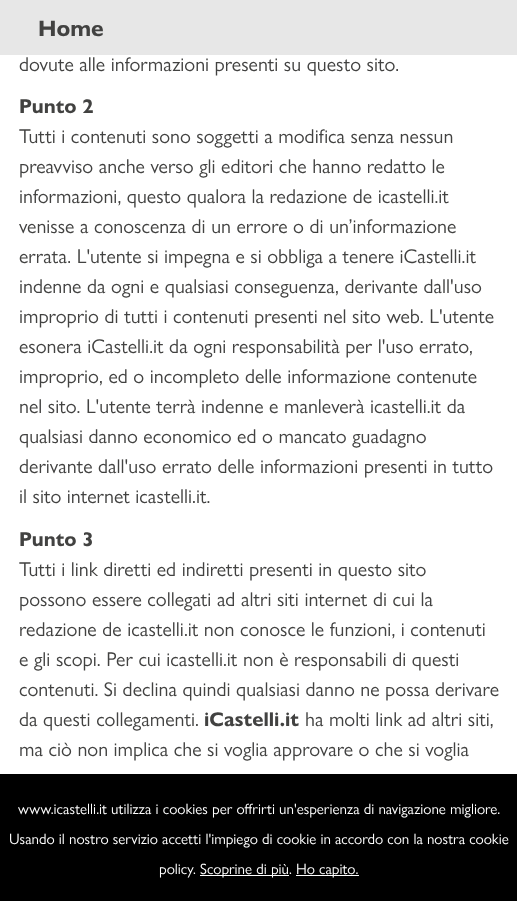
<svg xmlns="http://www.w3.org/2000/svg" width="517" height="901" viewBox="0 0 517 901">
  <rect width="100%" height="100%" fill="#fff"/>
  <path d="M0 0h517v55H0z" fill="#e7e7e7"/>
  <path d="M0 774h517v127H0z" fill="#000"/>
  <path d="M200 875h89v1H200z" fill="#fff"/>
  <path d="M296 875h63v1H296z" fill="#fff"/>
  <text x="38" y="36" font-family="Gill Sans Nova" font-size="22.5" font-weight="bold" fill="#424241">Home</text>
  <text x="19" y="71" font-family="Gill Sans Nova" font-size="20" fill="#424241">dovute alle informazioni presenti su questo sito.</text>
  <text x="19" y="113" font-family="Gill Sans Nova" font-size="20" font-weight="bold" fill="#424241">Punto 2</text>
  <g font-family="Gill Sans Nova" font-size="20" fill="#424241">
    <text x="19" y="143">Tutti i contenuti sono soggetti a modifica senza nessun</text>
    <text x="19" y="173">preavviso anche verso gli editori che hanno redatto le</text>
    <text x="19" y="203">informazioni, questo qualora la redazione de icastelli.it</text>
    <text x="19" y="233">venisse a conoscenza di un errore o di un’informazione</text>
    <text x="19" y="263">errata. L'utente si impegna e si obbliga a tenere iCastelli.it</text>
    <text x="19" y="293">indenne da ogni e qualsiasi conseguenza, derivante dall'uso</text>
    <text x="19" y="323">improprio di tutti i contenuti presenti nel sito web. L'utente</text>
    <text x="19" y="353">esonera iCastelli.it da ogni responsabilità per l'uso errato,</text>
    <text x="19" y="383">improprio, ed o incompleto delle informazione contenute</text>
    <text x="19" y="413">nel sito. L'utente terrà indenne e manleverà icastelli.it da</text>
    <text x="19" y="443">qualsiasi danno economico ed o mancato guadagno</text>
    <text x="19" y="473">derivante dall'uso errato delle informazioni presenti in tutto</text>
    <text x="19" y="503">il sito internet icastelli.it.</text>
  </g>
  <text x="19" y="546" font-family="Gill Sans Nova" font-size="20" font-weight="bold" fill="#424241">Punto 3</text>
  <g font-family="Gill Sans Nova" font-size="20" fill="#424241">
    <text x="19" y="576">Tutti i link diretti ed indiretti presenti in questo sito</text>
    <text x="19" y="606">possono essere collegati ad altri siti internet di cui la</text>
    <text x="19" y="636">redazione de icastelli.it non conosce le funzioni, i contenuti</text>
    <text x="19" y="666">e gli scopi. Per cui icastelli.it non è responsabili di questi</text>
    <text x="19" y="696">contenuti. Si declina quindi qualsiasi danno ne possa derivare</text>
    <text x="19" y="726">da questi collegamenti.</text>
  </g>
  <text x="204" y="726" font-family="Gill Sans Nova" font-size="20" font-weight="bold" fill="#424241">iCastelli.it</text>
  <g font-family="Gill Sans Nova" font-size="20" fill="#424241">
    <text x="305" y="726">ha molti link ad altri siti,</text>
    <text x="19" y="756">ma ciò non implica che si voglia approvare o che si voglia</text>
  </g>
  <g font-family="Gill Sans Nova" font-size="15" fill="#fff">
    <text x="18" y="814">www.icastelli.it utilizza i cookies per offrirti un'esperienza di navigazione migliore.</text>
    <text x="9" y="844">Usando il nostro servizio accetti l'impiego di cookie in accordo con la nostra cookie</text>
    <text x="159" y="874">policy.</text>
    <text x="200" y="874">Scoprine di più.</text>
    <text x="296" y="874">Ho capito.</text>
  </g>
</svg>
